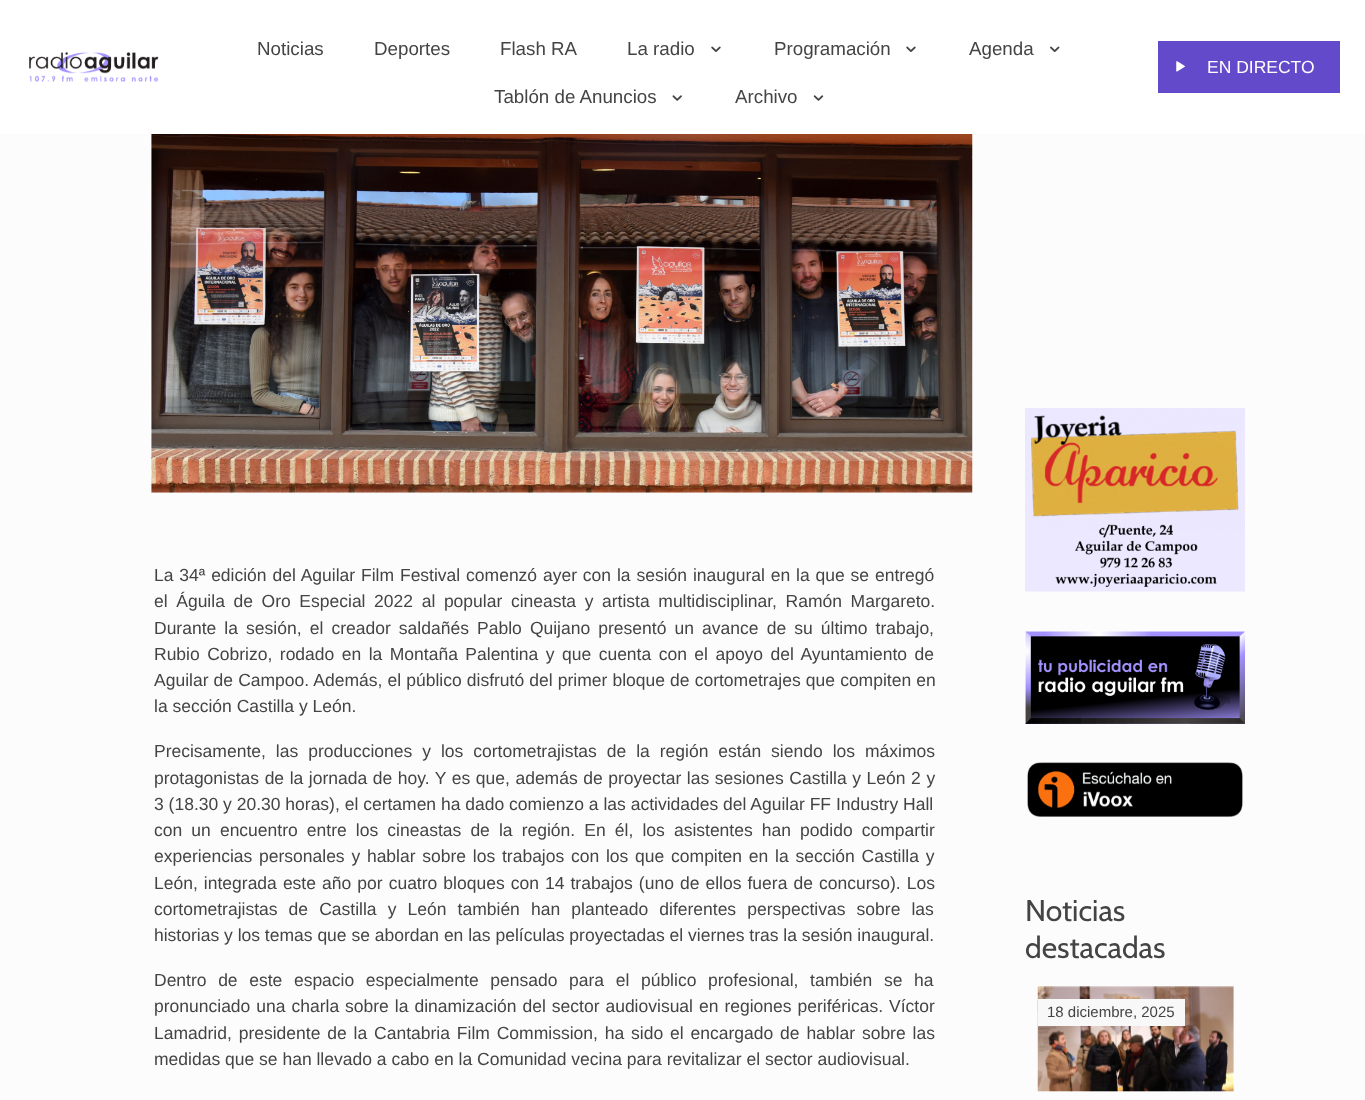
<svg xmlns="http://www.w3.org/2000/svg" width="1365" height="1100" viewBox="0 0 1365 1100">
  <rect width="100%" height="100%" fill="#fcfcfc"/>
  <path d="M0 0h1365v134H0z" fill="#fff"/>
  <image x="29" y="52" width="130" height="30" href="img/1.png"/>
  <image x="711" y="46" width="10" height="6" href="img/2.png"/>
  <image x="906" y="46" width="10" height="6" href="img/2.png"/>
  <image x="1050" y="46" width="10" height="6" href="img/3.png"/>
  <image x="672" y="95" width="10" height="6" href="img/4.png"/>
  <image x="813" y="95" width="11" height="6" href="img/5.png"/>
  <path d="M1158 41h182v52H1158z" fill="#624aca"/>
  <image x="1176" y="61" width="9" height="11" href="img/6.png"/>
  <image x="151" y="134" width="822" height="359" href="img/7.png"/>
  <image x="1025" y="408" width="220" height="184" href="img/8.png"/>
  <image x="1025" y="631" width="220" height="93" href="img/9.png"/>
  <image x="1027" y="762" width="216" height="55" href="img/10.png"/>
  <image x="1037" y="986" width="197" height="106" href="img/11.png"/>
  <path d="M1038 999h147v27H1038z" fill="#f8f8f8"/>
  <g font-family="Liberation Sans" font-size="18.75" fill="#444">
    <text x="257" y="55">Noticias</text>
    <text x="374" y="55">Deportes</text>
    <text x="500" y="55">Flash RA</text>
    <text x="627" y="55">La radio</text>
    <text x="774" y="55">Programación</text>
    <text x="969" y="55">Agenda</text>
    <text x="494" y="103">Tablón de Anuncios</text>
    <text x="735" y="103">Archivo</text>
  </g>
  <text x="1207" y="73" font-family="Liberation Sans" font-size="17.5" fill="#fff">EN DIRECTO</text>
  <g font-family="Liberation Sans" font-size="17.5" fill="#444">
    <text x="154" y="581" word-spacing="1">La 34ª edición del Aguilar Film Festival comenzó ayer con la sesión inaugural en la que se entregó</text>
    <text x="154" y="607" word-spacing="3.75">el Águila de Oro Especial 2022 al popular cineasta y artista multidisciplinar, Ramón Margareto.</text>
    <text x="154" y="634" word-spacing="3.25">Durante la sesión, el creador saldañés Pablo Quijano presentó un avance de su último trabajo,</text>
    <text x="154" y="660" word-spacing="2.6">Rubio Cobrizo, rodado en la Montaña Palentina y que cuenta con el apoyo del Ayuntamiento de</text>
    <text x="154" y="686" word-spacing="0.25">Aguilar de Campoo. Además, el público disfrutó del primer bloque de cortometrajes que compiten en</text>
    <text x="154" y="712">la sección Castilla y León.</text>
    <text x="154" y="757" word-spacing="5.1">Precisamente, las producciones y los cortometrajistas de la región están siendo los máximos</text>
    <text x="154" y="784" word-spacing="0.7">protagonistas de la jornada de hoy. Y es que, además de proyectar las sesiones Castilla y León 2 y</text>
    <text x="154" y="810">3 (18.30 y 20.30 horas), el certamen ha dado comienzo a las actividades del Aguilar FF Industry Hall</text>
    <text x="154" y="836" word-spacing="4.25">con un encuentro entre los cineastas de la región. En él, los asistentes han podido compartir</text>
    <text x="154" y="862" word-spacing="1.9">experiencias personales y hablar sobre los trabajos con los que compiten en la sección Castilla y</text>
    <text x="154" y="889" word-spacing="1.2">León, integrada este año por cuatro bloques con 14 trabajos (uno de ellos fuera de concurso). Los</text>
    <text x="154" y="915" word-spacing="6.25">cortometrajistas de Castilla y León también han planteado diferentes perspectivas sobre las</text>
    <text x="154" y="941">historias y los temas que se abordan en las películas proyectadas el viernes tras la sesión inaugural.</text>
    <text x="154" y="986" word-spacing="6.75">Dentro de este espacio especialmente pensado para el público profesional, también se ha</text>
    <text x="154" y="1012" word-spacing="1.1">pronunciado una charla sobre la dinamización del sector audiovisual en regiones periféricas. Víctor</text>
    <text x="154" y="1039" word-spacing="2">Lamadrid, presidente de la Cantabria Film Commission, ha sido el encargado de hablar sobre las</text>
    <text x="154" y="1065">medidas que se han llevado a cabo en la Comunidad vecina para revitalizar el sector audiovisual.</text>
  </g>
  <g font-family="Cabin" font-size="30" fill="#444">
    <text x="1025" y="921">Noticias</text>
    <text x="1025" y="958">destacadas</text>
  </g>
  <text x="1047" y="1017" font-family="Liberation Sans" font-size="15" fill="#444">18 diciembre, 2025</text>
</svg>
